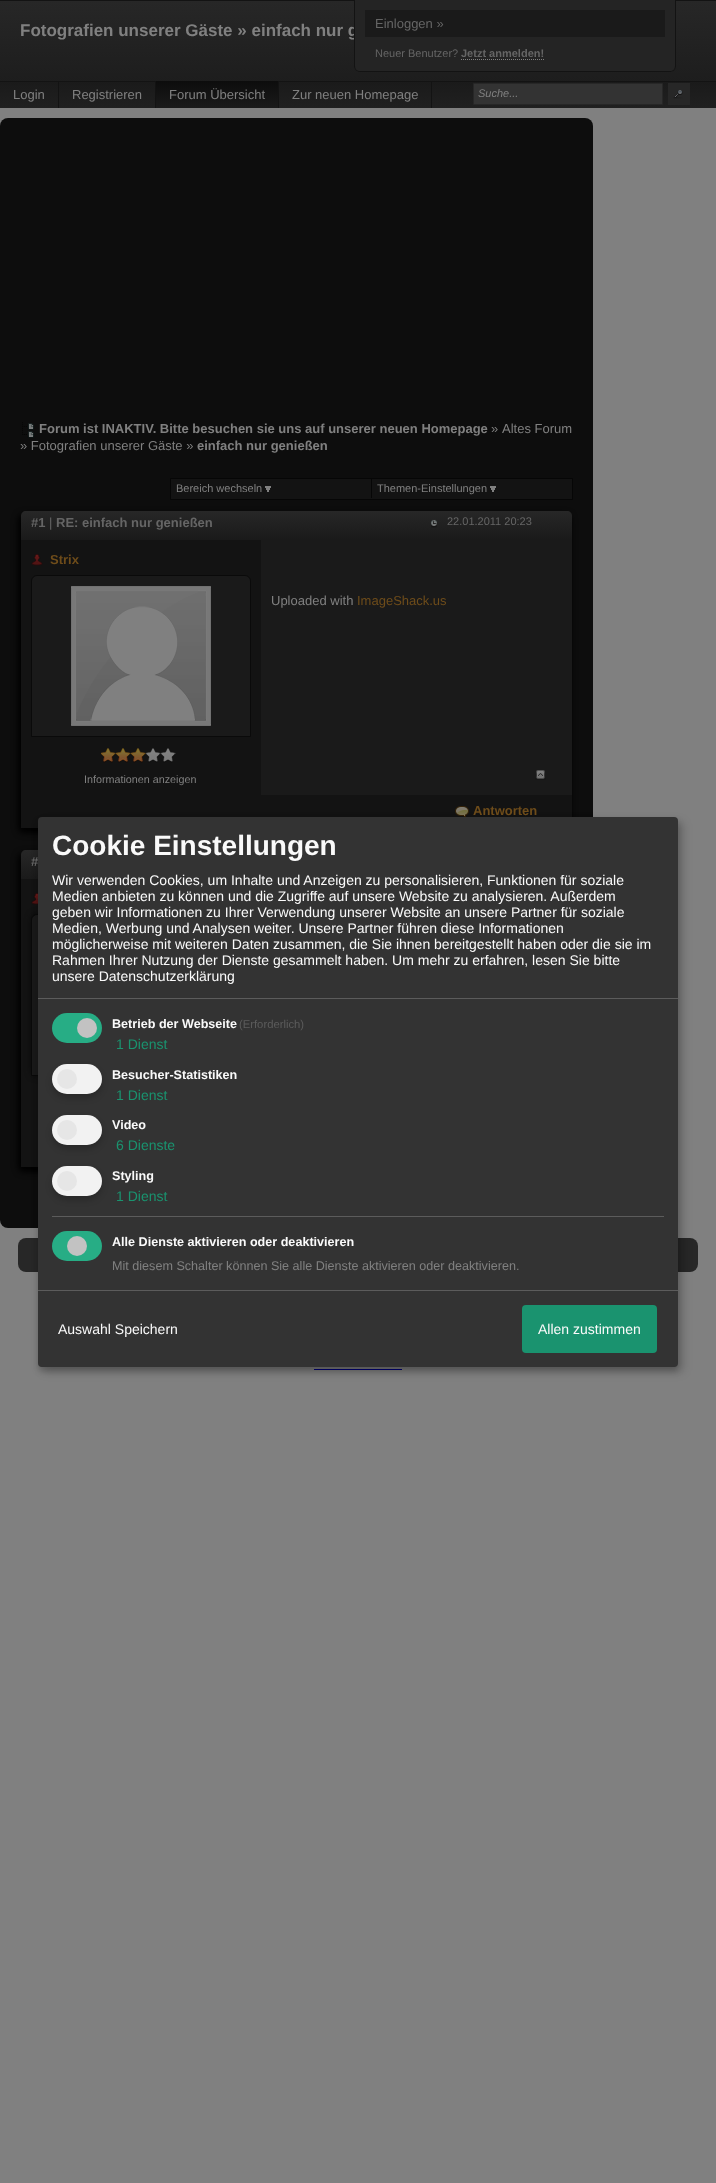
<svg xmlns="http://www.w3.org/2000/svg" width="716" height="2183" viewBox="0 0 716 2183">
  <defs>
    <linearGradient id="g1" gradientUnits="userSpaceOnUse" x1="0" y1="1" x2="0" y2="108"><stop offset="0" stop-color="#272727"/><stop offset="1" stop-color="#1a1a1a"/></linearGradient>
    <linearGradient id="g2" gradientUnits="userSpaceOnUse" x1="0" y1="81" x2="0" y2="108"><stop offset="0" stop-color="#1a1a1a"/><stop offset="1" stop-color="#202020"/></linearGradient>
    <linearGradient id="g3" gradientUnits="userSpaceOnUse" x1="156" y1="81" x2="156" y2="108"><stop offset="0" stop-color="#0d0d0d"/><stop offset="1" stop-color="#1a1a1a"/></linearGradient>
    <linearGradient id="g4" gradientUnits="userSpaceOnUse" x1="21" y1="511" x2="21" y2="540"><stop offset="0" stop-color="#272727"/><stop offset="1" stop-color="#1a1a1a"/></linearGradient>
    <linearGradient id="g5" gradientUnits="userSpaceOnUse" x1="21" y1="850" x2="21" y2="879"><stop offset="0" stop-color="#272727"/><stop offset="1" stop-color="#1a1a1a"/></linearGradient>
  </defs>
  <rect width="100%" height="100%" fill="#808080"/>
  <path d="M0 0h716v1H0z" fill="#131313"/>
  <path d="M0 1h716v80H0z" fill="url(#g1)"/>
  <path d="M0 82h716v26H0z" fill="url(#g2)"/>
  <path d="M0 81h716v1H0z" fill="#131313"/>
  <path d="M58 81h1v27H58z" fill="#131313"/>
  <path d="M156 81h122v27H156z" fill="url(#g3)"/>
  <path d="M278 81h1v27H278z" fill="#131313"/>
  <path d="M155 81h1v27H155z" fill="#131313"/>
  <path d="M431 81h1v27H431z" fill="#131313"/>
  <path d="M473.5 83.5h189v21H473.5z" fill="#333" stroke="#272727"/>
  <path d="M668 83h22v22H668z" fill="#272727"/>
  <image x="673" y="90" width="10" height="9" href="img/1.png"/>
  <rect y="118" width="593" height="1110" rx="8" fill="#0d0d0d"/>
  <image x="22" y="422" width="12" height="16" href="img/2.png"/>
  <path d="M170.5 478.5h402v21H170.5z" fill="#131313" stroke="#060606"/>
  <image x="265" y="486" width="6" height="6" href="img/3.png"/>
  <path d="M371 479h1v19H371z" fill="#060606"/>
  <image x="490" y="486" width="6" height="6" href="img/3.png"/>
  <rect x="18" y="514" width="553" height="319" rx="6" fill="#000" filter="blur(3px)"/>
  <path d="M26 511H567C570 511 572 513 572 516V540H21V516C21 513 23 511 26 511Z" fill="url(#g4)"/>
  <image x="431" y="519" width="6" height="9" href="img/4.png"/>
  <path d="M261 540h311v255H261z" fill="#1a1a1a"/>
  <path d="M21 540h240v255H21z" fill="#131313"/>
  <image x="31" y="554" width="12" height="12" href="img/5.png"/>
  <path d="M37 575.5H245C248 575.5 250.5 578 250.5 581V736.5H31.5V581C31.5 578 34 575.5 37 575.5Z" fill="#1a1a1a" stroke="#0a0a0a"/>
  <image x="71" y="586" width="140" height="140" href="img/6.png"/>
  <image x="101" y="748" width="75" height="15" href="img/7.png"/>
  <path d="M21 795h551v33H21z" fill="#131313"/>
  <image x="455" y="806" width="14" height="11" href="img/8.png"/>
  <image x="535" y="770" width="11" height="10" href="img/9.png"/>
  <rect x="18" y="853" width="553" height="319" rx="6" fill="#000" filter="blur(3px)"/>
  <path d="M26 850H567C570 850 572 852 572 855V879H21V855C21 852 23 850 26 850Z" fill="url(#g5)"/>
  <path d="M21 879h17v288H21z" fill="#131313"/>
  <image x="31" y="893" width="7" height="12" href="img/10.png"/>
  <rect x="31" y="914" width="220" height="162" rx="6" fill="#0a0a0a" filter="blur(3px)"/>
  <path d="M37 914.5H245C248 914.5 250.5 917 250.5 920V1075.5H31.5V920C31.5 917 34 914.5 37 914.5Z" fill="#1a1a1a" stroke="#0a0a0a"/>
  <rect x="18" y="1238" width="680" height="34" rx="8" fill="#272727"/>
  <path d="M314 1369h88v1H314z" fill="#007"/>
  <rect x="43" y="822" width="640" height="550" rx="4" fill="#00000030" filter="blur(5px)"/>
  <rect x="38" y="821" width="640" height="550" rx="4" fill="#00000033" filter="blur(3px)"/>
  <text x="20" y="36" font-family="Liberation Sans" font-size="17" font-weight="bold" fill="#808080">Fotografien unserer Gäste » einfach nur g</text>
  <path d="M354 0H676V66C676 69.5 673.5 72 670 72H360C356.5 72 354 69.5 354 66Z" fill="#242424"/>
  <path d="M354 0H676V66C676 69 673 72 670 72H360C357 72 354 69 354 66ZM355 0H675V66C675 69 673 71 670 71H360C357 71 355 69 355 66Z" fill="#131313" fill-rule="evenodd"/>
  <text x="461" y="57" font-family="Liberation Sans" font-size="11" font-weight="bold" fill="#656565">Jetzt anmelden!</text>
  <path d="M461 59.5H544" fill="none" stroke="#808080" stroke-dasharray="1 1"/>
  <text x="375" y="57" font-family="Liberation Sans" font-size="11" fill="#656565">Neuer Benutzer?</text>
  <path d="M365 10h300v27H365z" fill="#1a1a1a"/>
  <text x="375" y="28" font-family="Liberation Sans" font-size="13" fill="#656565">Einloggen »</text>
  <g font-family="Liberation Sans" font-size="13" fill="#808080">
    <text x="13" y="99">Login</text>
    <text x="72" y="99">Registrieren</text>
    <text x="169" y="99">Forum Übersicht</text>
    <text x="292" y="99">Zur neuen Homepage</text>
  </g>
  <text x="478" y="97" font-family="Liberation Sans" font-size="11" font-style="italic" fill="#808080">Suche...</text>
  <text x="39" y="433" font-family="Liberation Sans" font-size="13" font-weight="bold" fill="#808080">Forum ist INAKTIV. Bitte besuchen sie uns auf unserer neuen Homepage</text>
  <g font-family="Liberation Sans" font-size="13" fill="#808080">
    <text x="491" y="433">»</text>
    <text x="502" y="433">Altes Forum</text>
    <text x="20" y="450">» Fotografien unserer Gäste »</text>
  </g>
  <text x="197" y="450" font-family="Liberation Sans" font-size="13" font-weight="bold" fill="#808080">einfach nur genießen</text>
  <g font-family="Liberation Sans" font-size="11" fill="#808080">
    <text x="176" y="492">Bereich wechseln</text>
    <text x="377" y="492">Themen-Einstellungen</text>
  </g>
  <text x="31" y="527" font-family="Liberation Sans" font-size="13" font-weight="bold" fill="#656565">#1</text>
  <text x="49" y="527" font-family="Liberation Sans" font-size="13" fill="#656565">|</text>
  <text x="56" y="527" font-family="Liberation Sans" font-size="13" font-weight="bold" fill="#656565">RE: einfach nur genießen</text>
  <text x="447" y="525" font-family="Liberation Sans" font-size="11" fill="#656565">22.01.2011 20:23</text>
  <text x="50" y="564" font-family="Liberation Sans" font-size="13" font-weight="bold" fill="#6e4c1a">Strix</text>
  <text x="84" y="783" font-family="Liberation Sans" font-size="10.75" fill="#808080">Informationen anzeigen</text>
  <text x="271" y="605" font-family="Liberation Sans" font-size="13" fill="#808080">Uploaded with</text>
  <text x="357" y="605" font-family="Liberation Sans" font-size="13" fill="#6e4c1a">ImageShack.us</text>
  <text x="473" y="815" font-family="Liberation Sans" font-size="13" font-weight="bold" fill="#6e4c1a">Antworten</text>
  <text x="31" y="866" font-family="Liberation Sans" font-size="13" font-weight="bold" fill="#656565">#</text>
  <rect x="38" y="817" width="640" height="550" rx="4" fill="#333"/>
  <path d="M38 998h640v1H38z" fill="#5c5c5c"/>
  <text x="52" y="855" font-family="Liberation Sans" font-size="28" font-weight="bold" fill="#fafafa">Cookie Einstellungen</text>
  <g font-family="Liberation Sans" font-size="14" fill="#fafafa">
    <text x="52" y="885">Wir verwenden Cookies, um Inhalte und Anzeigen zu personalisieren, Funktionen für soziale</text>
    <text x="52" y="901">Medien anbieten zu können und die Zugriffe auf unsere Website zu analysieren. Außerdem</text>
    <text x="52" y="917">geben wir Informationen zu Ihrer Verwendung unserer Website an unsere Partner für soziale</text>
    <text x="52" y="933">Medien, Werbung und Analysen weiter. Unsere Partner führen diese Informationen</text>
    <text x="52" y="949">möglicherweise mit weiteren Daten zusammen, die Sie ihnen bereitgestellt haben oder die sie im</text>
    <text x="52" y="965">Rahmen Ihrer Nutzung der Dienste gesammelt haben. Um mehr zu erfahren, lesen Sie bitte</text>
    <text x="52" y="981">unsere Datenschutzerklärung</text>
  </g>
  <rect x="52" y="1013" width="50" height="30" rx="15" fill="#27ad85"/>
  <circle cx="87" cy="1028" r="10" fill="#c2c2c2"/>
  <text x="112" y="1028" font-family="Liberation Sans" font-size="12.6" font-weight="bold" fill="#fafafa">Betrieb der Webseite</text>
  <text x="239" y="1028" font-family="Liberation Sans" font-size="11.25" fill="#5c5c5c">(Erforderlich)</text>
  <text x="116" y="1049" font-family="Liberation Sans" font-size="14" fill="#1a936f">1 Dienst</text>
  <rect x="52" y="1068" width="50" height="30" rx="15" fill="#00000033" filter="blur(3px)"/>
  <rect x="52" y="1064" width="50" height="30" rx="15" fill="#f2f2f2"/>
  <circle cx="67" cy="1079" r="10" fill="#e6e6e6"/>
  <text x="112" y="1079" font-family="Liberation Sans" font-size="12.6" font-weight="bold" fill="#fafafa">Besucher-Statistiken</text>
  <text x="116" y="1100" font-family="Liberation Sans" font-size="14" fill="#1a936f">1 Dienst</text>
  <rect x="52" y="1119" width="50" height="30" rx="15" fill="#00000033" filter="blur(3px)"/>
  <rect x="52" y="1115" width="50" height="30" rx="15" fill="#f2f2f2"/>
  <circle cx="67" cy="1130" r="10" fill="#e6e6e6"/>
  <text x="112" y="1129" font-family="Liberation Sans" font-size="12.6" font-weight="bold" fill="#fafafa">Video</text>
  <text x="116" y="1150" font-family="Liberation Sans" font-size="14" fill="#1a936f">6 Dienste</text>
  <rect x="52" y="1170" width="50" height="30" rx="15" fill="#00000033" filter="blur(3px)"/>
  <rect x="52" y="1166" width="50" height="30" rx="15" fill="#f2f2f2"/>
  <circle cx="67" cy="1181" r="10" fill="#e6e6e6"/>
  <text x="112" y="1180" font-family="Liberation Sans" font-size="12.6" font-weight="bold" fill="#fafafa">Styling</text>
  <text x="116" y="1201" font-family="Liberation Sans" font-size="14" fill="#1a936f">1 Dienst</text>
  <path d="M52 1216h612v1H52z" fill="#5c5c5c"/>
  <rect x="52" y="1231" width="50" height="30" rx="15" fill="#27ad85"/>
  <circle cx="77" cy="1246" r="10" fill="#c2c2c2"/>
  <text x="112" y="1246" font-family="Liberation Sans" font-size="12.6" font-weight="bold" fill="#fafafa">Alle Dienste aktivieren oder deaktivieren</text>
  <text x="112" y="1270" font-family="Liberation Sans" font-size="12.6" fill="#808080">Mit diesem Schalter können Sie alle Dienste aktivieren oder deaktivieren.</text>
  <path d="M38 1290h640v1H38z" fill="#5c5c5c"/>
  <text x="58" y="1334" font-family="Liberation Sans" font-size="14" fill="#fafafa">Auswahl Speichern</text>
  <rect x="522" y="1305" width="135" height="48" rx="4" fill="#1a936f"/>
  <text x="538" y="1334" font-family="Liberation Sans" font-size="14" fill="#fafafa">Allen zustimmen</text>
</svg>
